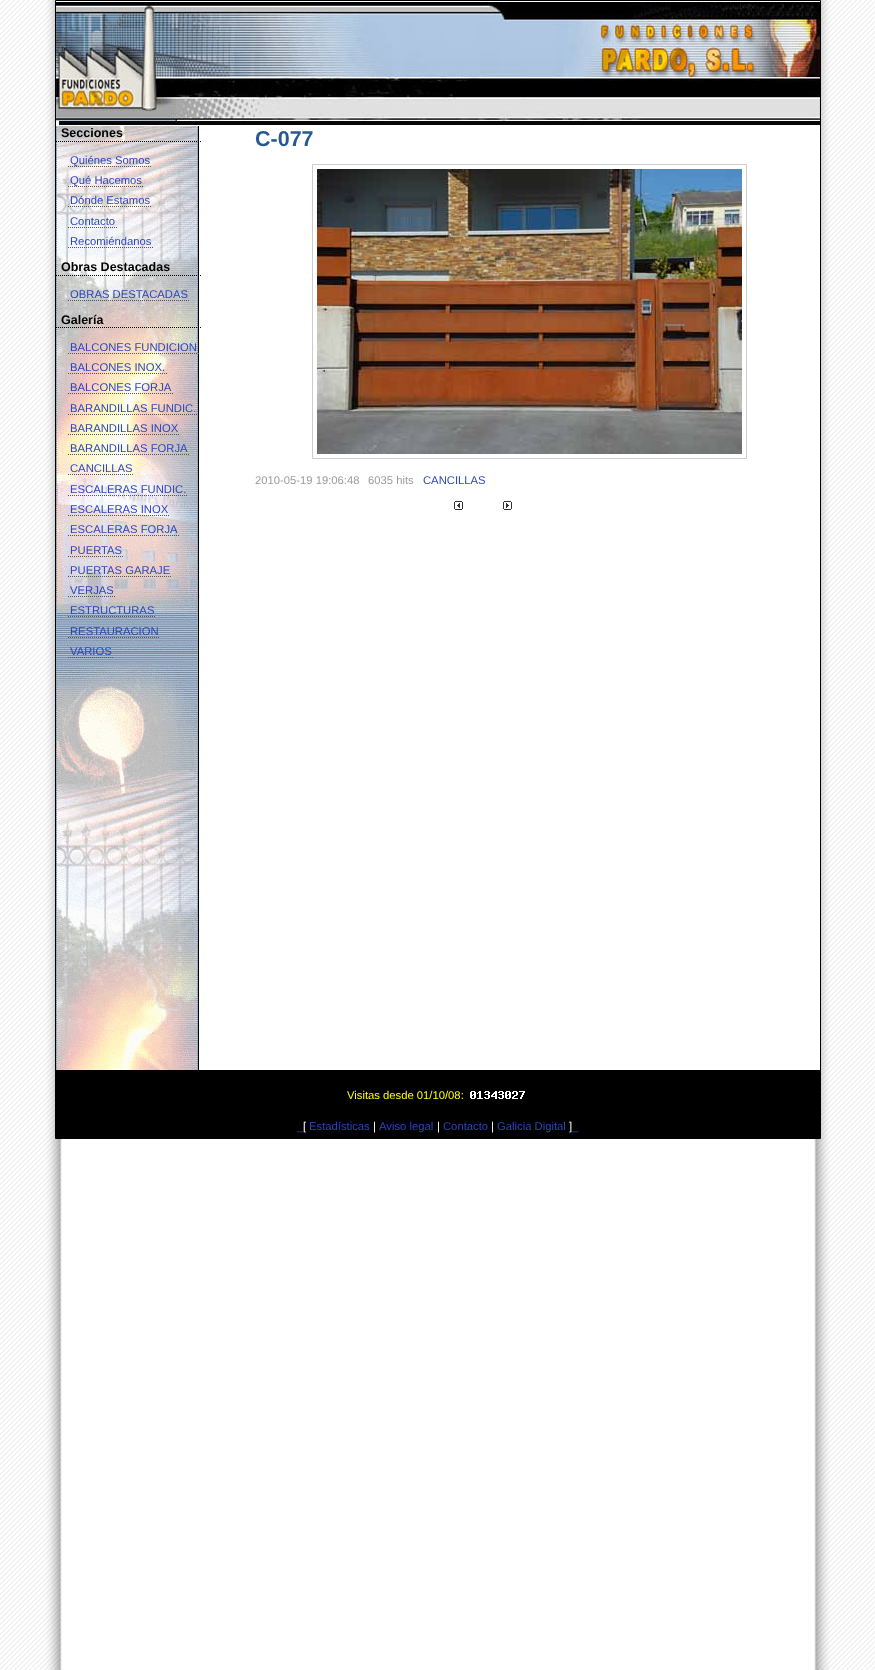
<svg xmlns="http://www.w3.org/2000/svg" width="875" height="1670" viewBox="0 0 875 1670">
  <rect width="100%" height="100%" fill="#fff"/>
  <image x="0" y="0" width="875" height="1670" href="img/1.png"/>
  <path d="M814 126h6v944H814z" fill="#fff"/>
  <image x="56" y="126" width="143" height="944" href="img/2.png"/>
  <path d="M55.5 0.5h765v1138H55.5z" fill="none" stroke="#000"/>
  <image x="56" y="1" width="764" height="125" href="img/3.png"/>
  <path d="M56 141.5H201" fill="none" stroke="#000" stroke-dasharray="1 1"/>
  <path d="M68 166.5H152" fill="none" stroke="#555" stroke-dasharray="1 1"/>
  <path d="M68 186.5H144" fill="none" stroke="#555" stroke-dasharray="1 1"/>
  <path d="M68 206.5H152" fill="none" stroke="#555" stroke-dasharray="1 1"/>
  <path d="M68 227.5H117" fill="none" stroke="#555" stroke-dasharray="1 1"/>
  <path d="M68 247.5H153" fill="none" stroke="#555" stroke-dasharray="1 1"/>
  <path d="M56 275.5H201" fill="none" stroke="#000" stroke-dasharray="1 1"/>
  <path d="M68 300.5H190" fill="none" stroke="#555" stroke-dasharray="1 1"/>
  <path d="M56 327.5H201" fill="none" stroke="#000" stroke-dasharray="1 1"/>
  <path d="M68 353.5H199" fill="none" stroke="#555" stroke-dasharray="1 1"/>
  <path d="M68 373.5H167" fill="none" stroke="#555" stroke-dasharray="1 1"/>
  <path d="M68 393.5H173" fill="none" stroke="#555" stroke-dasharray="1 1"/>
  <path d="M68 414.5H198" fill="none" stroke="#555" stroke-dasharray="1 1"/>
  <path d="M68 434.5H180" fill="none" stroke="#555" stroke-dasharray="1 1"/>
  <path d="M68 454.5H189" fill="none" stroke="#555" stroke-dasharray="1 1"/>
  <path d="M68 474.5H134" fill="none" stroke="#555" stroke-dasharray="1 1"/>
  <path d="M68 495.5H188" fill="none" stroke="#555" stroke-dasharray="1 1"/>
  <path d="M68 515.5H170" fill="none" stroke="#555" stroke-dasharray="1 1"/>
  <path d="M68 535.5H179" fill="none" stroke="#555" stroke-dasharray="1 1"/>
  <path d="M68 556.5H124" fill="none" stroke="#555" stroke-dasharray="1 1"/>
  <path d="M68 576.5H172" fill="none" stroke="#555" stroke-dasharray="1 1"/>
  <path d="M68 596.5H115" fill="none" stroke="#555" stroke-dasharray="1 1"/>
  <path d="M68 616.5H156" fill="none" stroke="#555" stroke-dasharray="1 1"/>
  <path d="M68 637.5H160" fill="none" stroke="#555" stroke-dasharray="1 1"/>
  <path d="M68 657.5H113" fill="none" stroke="#555" stroke-dasharray="1 1"/>
  <path d="M312.5 164.5h434v294H312.5z" fill="none" stroke="#ccc"/>
  <image x="317" y="169" width="425" height="285" href="img/4.png"/>
  <image x="454" y="501" width="9" height="9" href="img/5.png"/>
  <image x="503" y="501" width="9" height="9" href="img/6.png"/>
  <path d="M56 1070h764v68H56z" fill="#000"/>
  <image x="470" y="1091" width="55" height="8" href="img/7.png"/>
  <text x="61" y="137" font-family="Liberation Sans" font-size="12.5" font-weight="bold" fill="#000">Secciones</text>
  <g font-family="Liberation Sans" font-size="11.25" fill="#2b46bd">
    <text x="70" y="164">Quiénes Somos</text>
    <text x="70" y="184">Qué Hacemos</text>
    <text x="70" y="204">Dónde Estamos</text>
    <text x="70" y="225">Contacto</text>
    <text x="70" y="245">Recomiéndanos</text>
  </g>
  <text x="61" y="271" font-family="Liberation Sans" font-size="12.5" font-weight="bold" fill="#000">Obras Destacadas</text>
  <text x="70" y="298" font-family="Liberation Sans" font-size="11.25" fill="#2b46bd">OBRAS DESTACADAS</text>
  <text x="61" y="324" font-family="Liberation Sans" font-size="12.5" font-weight="bold" fill="#000">Galería</text>
  <g font-family="Liberation Sans" font-size="11.25" fill="#2b46bd">
    <text x="70" y="351">BALCONES FUNDICION</text>
    <text x="70" y="371">BALCONES INOX.</text>
    <text x="70" y="391">BALCONES FORJA</text>
    <text x="70" y="412">BARANDILLAS FUNDIC.</text>
    <text x="70" y="432">BARANDILLAS INOX</text>
    <text x="70" y="452">BARANDILLAS FORJA</text>
    <text x="70" y="472">CANCILLAS</text>
    <text x="70" y="493">ESCALERAS FUNDIC.</text>
    <text x="70" y="513">ESCALERAS INOX</text>
    <text x="70" y="533">ESCALERAS FORJA</text>
    <text x="70" y="554">PUERTAS</text>
    <text x="70" y="574">PUERTAS GARAJE</text>
    <text x="70" y="594">VERJAS</text>
    <text x="70" y="614">ESTRUCTURAS</text>
    <text x="70" y="635">RESTAURACION</text>
    <text x="70" y="655">VARIOS</text>
  </g>
  <text x="255" y="146" font-family="Liberation Sans" font-size="21.5" font-weight="bold" fill="#285892">C-077</text>
  <g font-family="Liberation Sans" font-size="11.25" fill="#9d9c9b">
    <text x="255" y="484">2010-05-19 19:06:48</text>
    <text x="368" y="484">6035 hits</text>
  </g>
  <text x="423" y="484" font-family="Liberation Sans" font-size="11.25" fill="#2b46bd">CANCILLAS</text>
  <text x="347" y="1099" font-family="Liberation Sans" font-size="11.25" fill="#ff0">Visitas desde 01/10/08:</text>
  <text x="309" y="1130" font-family="Liberation Sans" font-size="11.25" fill="#2b46bd">Estadísticas</text>
  <text x="373" y="1130" font-family="Liberation Sans" font-size="11.25" fill="#fff">|</text>
  <text x="379" y="1130" font-family="Liberation Sans" font-size="11.25" fill="#2b46bd">Aviso legal</text>
  <text x="437" y="1130" font-family="Liberation Sans" font-size="11.25" fill="#fff">|</text>
  <text x="443" y="1130" font-family="Liberation Sans" font-size="11.25" fill="#2b46bd">Contacto</text>
  <text x="491" y="1130" font-family="Liberation Sans" font-size="11.25" fill="#fff">|</text>
  <text x="497" y="1130" font-family="Liberation Sans" font-size="11.25" fill="#2b46bd">Galicia Digital</text>
  <text x="569" y="1130" font-family="Liberation Sans" font-size="11.25" fill="#fff">]</text>
  <text x="297" y="1130" font-family="Liberation Sans" font-size="11.25" fill="#2b46bd">_</text>
  <text x="303" y="1130" font-family="Liberation Sans" font-size="11.25" fill="#fff">[</text>
  <text x="572" y="1130" font-family="Liberation Sans" font-size="11.25" fill="#2b46bd">_</text>
</svg>
